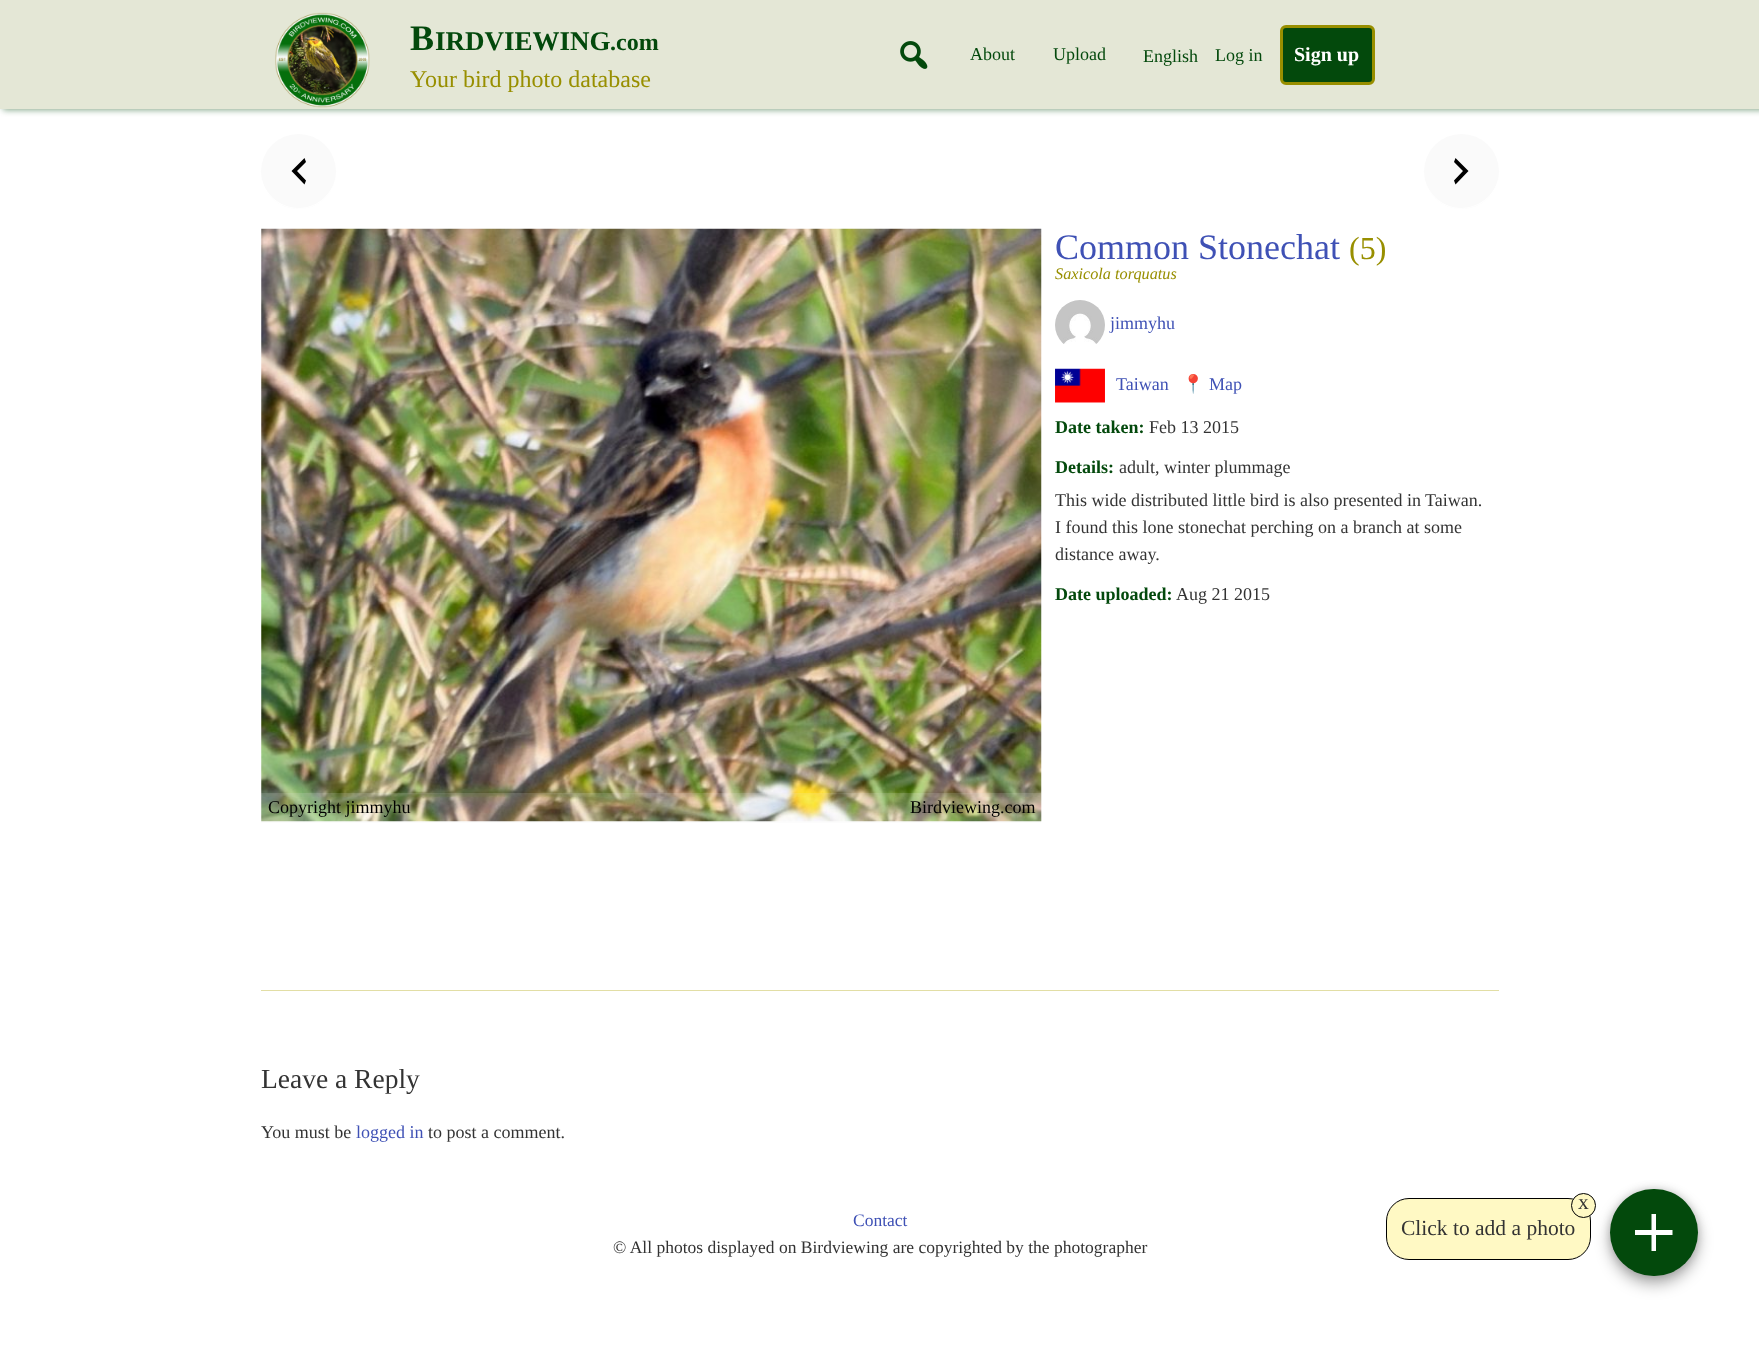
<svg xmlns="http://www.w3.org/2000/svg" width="1759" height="1347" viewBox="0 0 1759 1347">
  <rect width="100%" height="100%" fill="#fff"/>
  <path d="M3 -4h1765v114H3z" fill="#03490c7d" filter="blur(3px)"/>
  <path d="M0 0h1759v109H0z" fill="#e4e7d6"/>
  <image x="275" y="12" width="95" height="96" href="img/1.png"/>
  <image x="900" y="41" width="28" height="28" href="img/2.png"/>
  <rect x="1281.5" y="26.5" width="92" height="57" rx="4.5" fill="#03490c" stroke="#988f00" stroke-width="3"/>
  <circle cx="298.5" cy="171.5" r="37.5" fill="#fafafa"/>
  <path d="M336 171C336 191 319 208 299 208C278 208 261 191 261 171C260 208 309 223 330 192C334 186 336 178 336 171Z" fill="#fff"/>
  <path d="M306 162L297 171L306 180.5L304.5 184.5L291.5 171L304.5 158Z" fill="#000"/>
  <circle cx="1461.5" cy="171.5" r="37.5" fill="#fafafa"/>
  <path d="M1424 171C1424 178 1426 186 1430 192C1451 223 1500 208 1499 171C1499 191 1482 208 1461 208C1441 208 1424 191 1424 171Z" fill="#fff"/>
  <path d="M1454 180.5L1463 171L1454 162L1455.5 158L1468.5 171L1455.5 184.5Z" fill="#000"/>
  <path d="M261 990h1238v1H261z" fill="#e2dea5"/>
  <image x="1055" y="300" width="50" height="44" href="img/3.png"/>
  <image x="1055" y="368" width="50" height="35" href="img/4.png"/>
  <image x="261" y="228" width="781" height="594" href="img/5.png"/>
  <path d="M261 793h780v30H261z" fill="#eeeeee29"/>
  <rect x="1386.5" y="1198.5" width="204" height="61" rx="22.5" fill="#fff9c4" stroke="#000"/>
  <circle cx="1583.5" cy="1205.5" r="12" fill="#fff9c4" stroke="#000"/>
  <rect x="1610" y="1196" width="88" height="88" rx="44" fill="#00000052" filter="blur(7.5px)"/>
  <rect x="1610" y="1189" width="88" height="87" rx="43.5" fill="#00000029" filter="blur(4px)"/>
  <rect x="1610" y="1189" width="88" height="87" rx="43.5" fill="#03490c"/>
  <path d="M1656 1230V1214H1651.5V1230H1635V1235H1651.5V1251H1656V1235H1672.5V1230Z" fill="#fff"/>
  <text x="410" y="50" font-family="Liberation Serif" font-size="36" font-weight="bold" fill="#03490c">B</text>
  <text x="435" y="50" font-family="Liberation Serif" font-size="27" font-weight="bold" fill="#03490c">IRDVIEWING</text>
  <text x="610" y="50" font-family="Liberation Serif" font-size="24" font-weight="bold" fill="#03490c">.com</text>
  <text x="410" y="87" font-family="Liberation Serif" font-size="24" fill="#988f00">Your bird photo database</text>
  <g font-family="Liberation Serif" font-size="18" fill="#03490c">
    <text x="970" y="60">About</text>
    <text x="1053" y="60">Upload</text>
    <text x="1143" y="62">English</text>
    <text x="1215" y="61">Log in</text>
  </g>
  <text x="1294" y="61" font-family="Liberation Serif" font-size="20" font-weight="bold" fill="#fff">Sign up</text>
  <text x="1055" y="259" font-family="Liberation Serif" font-size="36" fill="#3f51b5">Common Stonechat</text>
  <text x="1349" y="259" font-family="Liberation Serif" font-size="32" fill="#988f00">(5)</text>
  <text x="1055" y="279" font-family="Liberation Serif" font-size="16.25" font-style="italic" fill="#988f00">Saxicola torquatus</text>
  <g font-family="Liberation Serif" font-size="18" fill="#3f51b5">
    <text x="1110" y="329">jimmyhu</text>
    <text x="1116" y="390">Taiwan</text>
  </g>
  <text x="1182" y="390" font-family="Noto Color Emoji" font-size="18" fill="#3f51b5">📍</text>
  <text x="1209" y="390" font-family="Liberation Serif" font-size="18" fill="#3f51b5">Map</text>
  <text x="1055" y="433" font-family="Liberation Serif" font-size="18" font-weight="bold" fill="#03490c">Date taken:</text>
  <text x="1149" y="433" font-family="Liberation Serif" font-size="18" fill="#333">Feb 13 2015</text>
  <text x="1055" y="473" font-family="Liberation Serif" font-size="18" font-weight="bold" fill="#03490c">Details:</text>
  <g font-family="Liberation Serif" font-size="18" fill="#333">
    <text x="1119" y="473">adult, winter plummage</text>
    <text x="1055" y="506">This wide distributed little bird is also presented in Taiwan.</text>
    <text x="1055" y="533">I found this lone stonechat perching on a branch at some</text>
    <text x="1055" y="560">distance away.</text>
  </g>
  <text x="1055" y="600" font-family="Liberation Serif" font-size="18" font-weight="bold" fill="#03490c">Date uploaded:</text>
  <text x="1176" y="600" font-family="Liberation Serif" font-size="18" fill="#333">Aug 21 2015</text>
  <g font-family="Liberation Serif" font-size="18" fill="#000">
    <text x="268" y="813">Copyright jimmyhu</text>
    <text x="910" y="813">Birdviewing.com</text>
  </g>
  <text x="261" y="1088" font-family="Liberation Serif" font-size="27.5" fill="#333">Leave a Reply</text>
  <text x="261" y="1138" font-family="Liberation Serif" font-size="18" fill="#333">You must be</text>
  <text x="356" y="1138" font-family="Liberation Serif" font-size="18" fill="#3f51b5">logged in</text>
  <text x="428" y="1138" font-family="Liberation Serif" font-size="18" fill="#333">to post a comment.</text>
  <g font-family="Liberation Serif" font-size="21.5" fill="#333">
    <text x="1578" y="1209">x</text>
    <text x="1401" y="1235">Click to add a photo</text>
  </g>
  <text x="853" y="1226" font-family="Liberation Serif" font-size="17.5" fill="#3f51b5">Contact</text>
  <text x="613" y="1253" font-family="Liberation Serif" font-size="17.5" fill="#333">© All photos displayed on Birdviewing are copyrighted by the photographer</text>
</svg>
